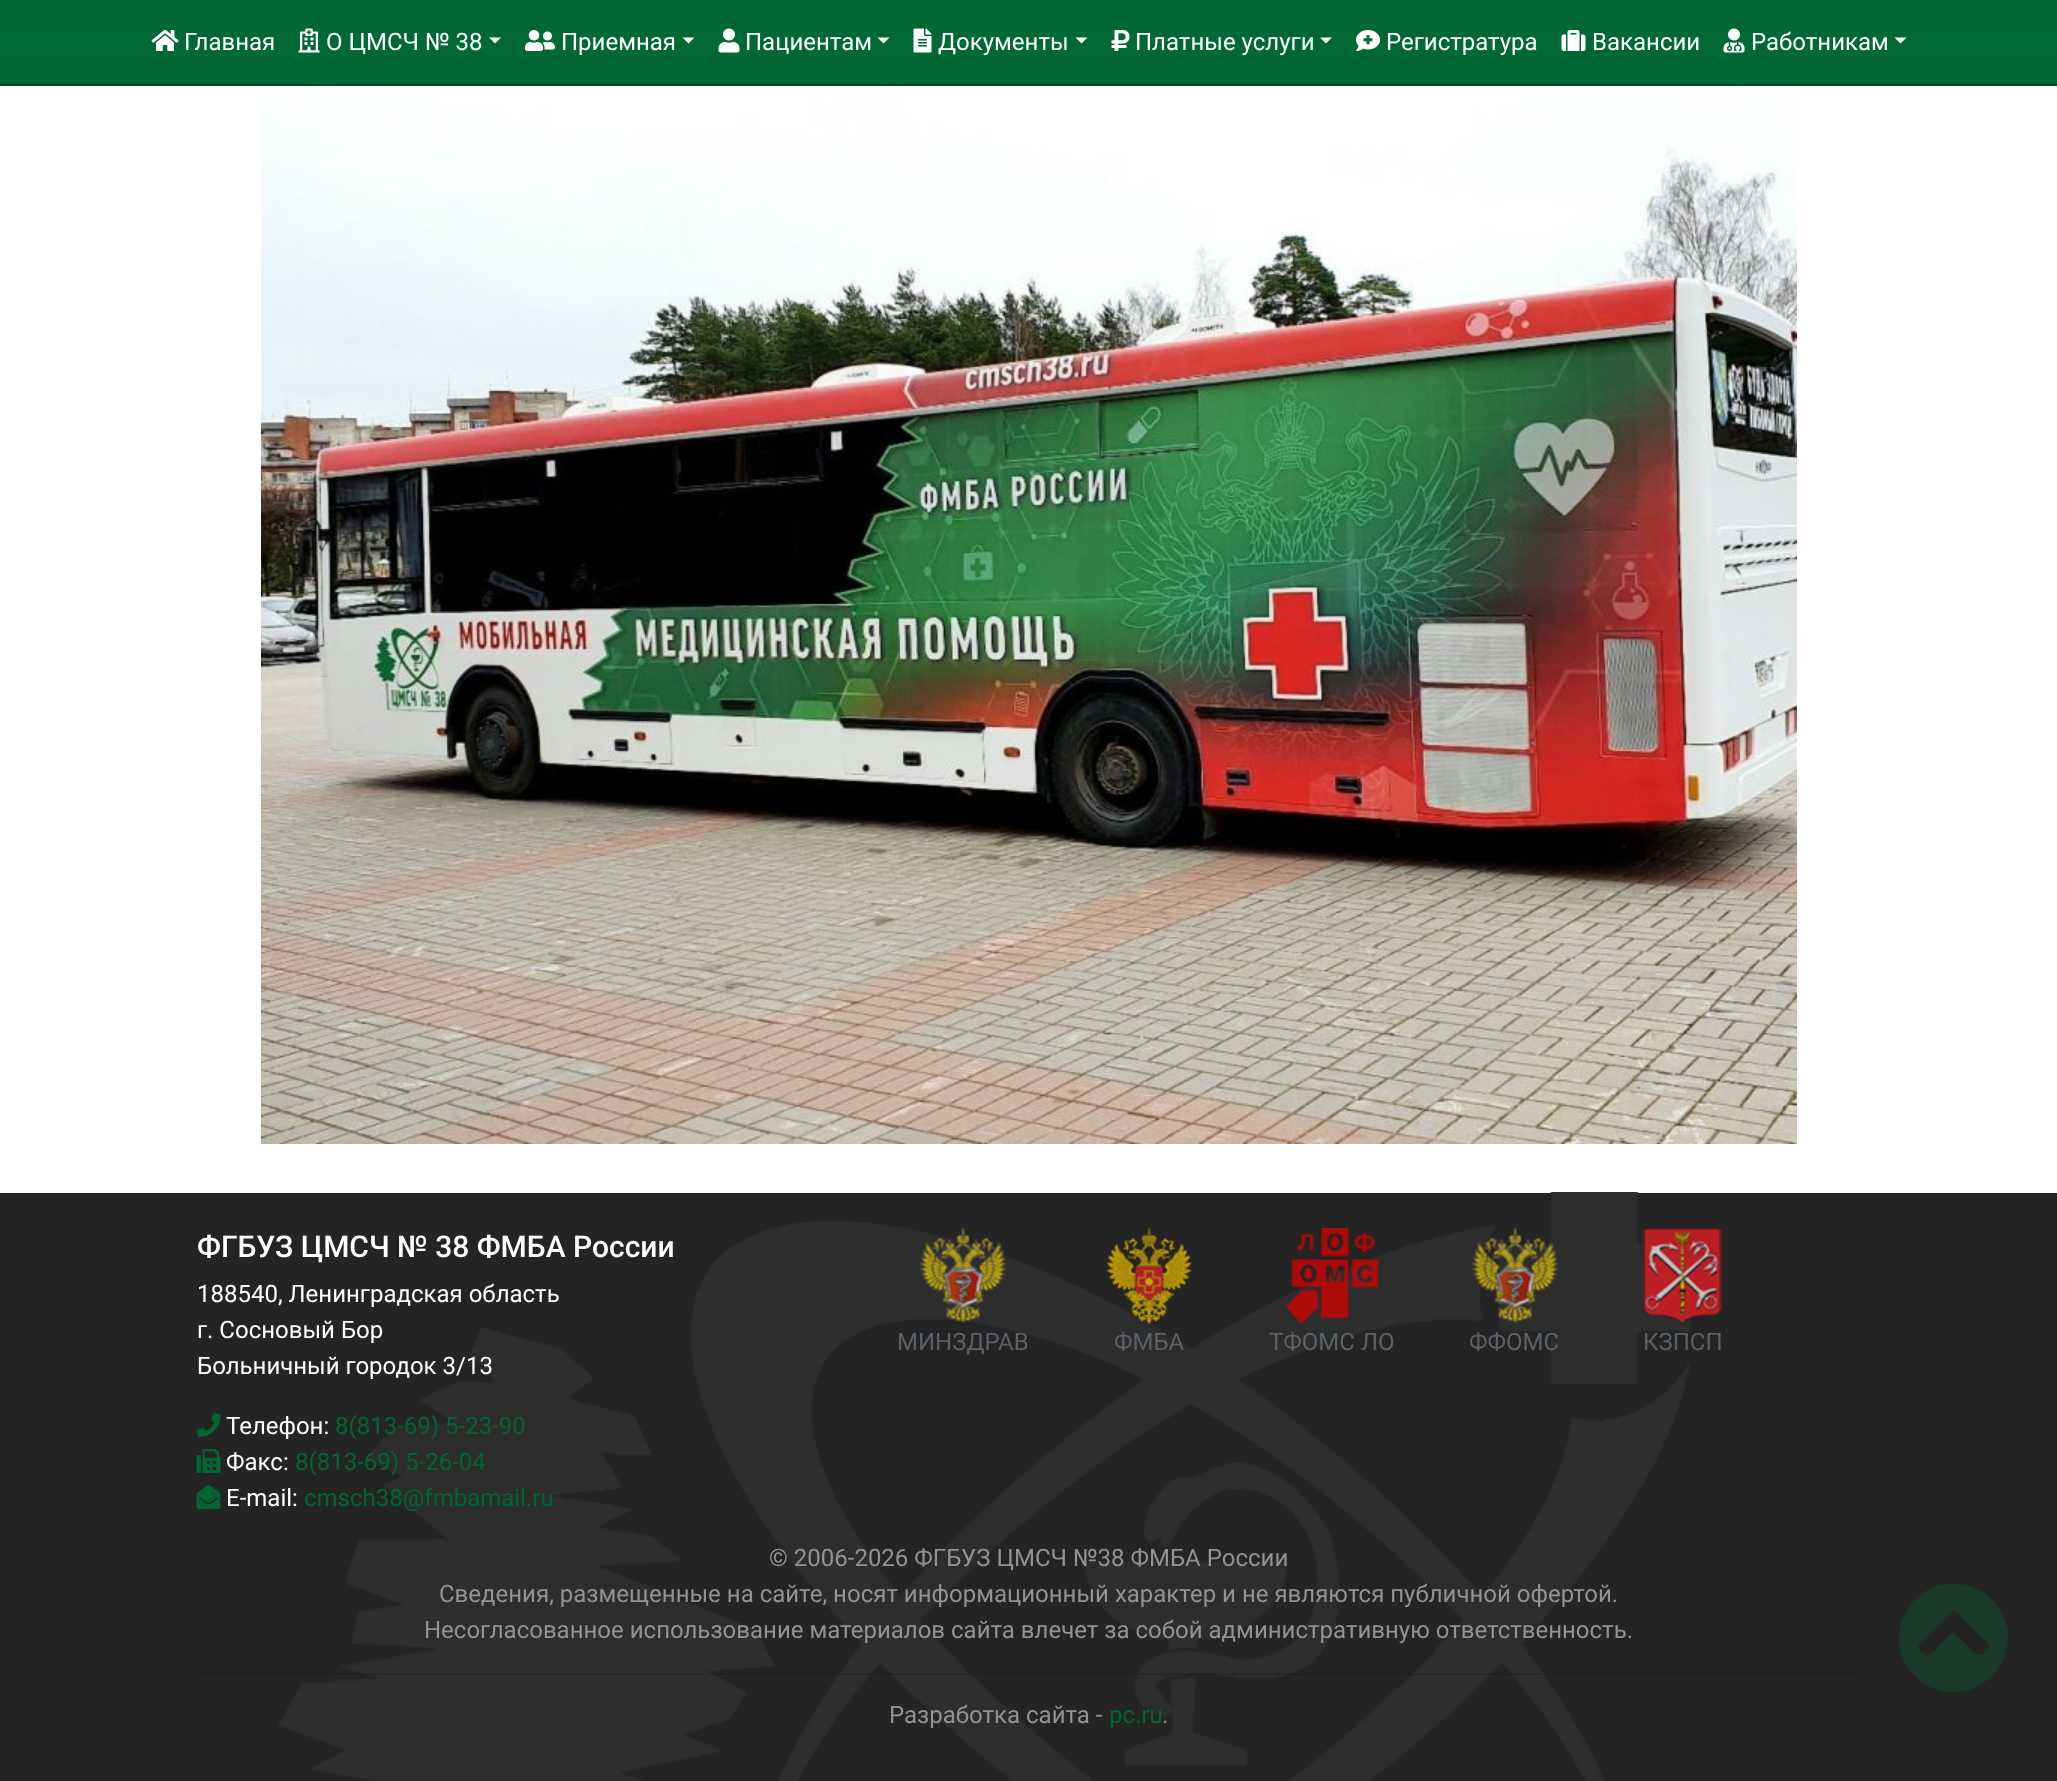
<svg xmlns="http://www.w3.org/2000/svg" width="2057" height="1781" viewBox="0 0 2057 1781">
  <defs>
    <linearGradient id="g1" gradientUnits="userSpaceOnUse" x1="1029" y1="0" x2="1029" y2="84"><stop offset="0" stop-color="#016533"/><stop offset="0.5" stop-color="#006934"/><stop offset="1" stop-color="#016533"/></linearGradient>
  </defs>
  <rect width="100%" height="100%" fill="#fff"/>
  <path d="M0 0h2057v84H0z" fill="url(#g1)"/>
  <path d="M0 84h2057v2H0z" fill="#004723"/>
  <image x="151" y="30" width="28" height="21" href="img/1.png"/>
  <image x="298" y="28" width="22" height="25" href="img/2.png"/>
  <path d="M489 37.5H501L495 43.5Z" fill="#fff"/>
  <image x="525" y="30" width="30" height="21" href="img/3.png"/>
  <path d="M682.5 37.5H694.5L688.5 43.5Z" fill="#fff"/>
  <image x="718" y="28" width="22" height="25" href="img/4.png"/>
  <path d="M877.5 37.5H889.5L883.5 43.5Z" fill="#fff"/>
  <image x="913" y="28" width="19" height="25" href="img/5.png"/>
  <path d="M1075.5 37.5H1087.5L1081.5 43.5Z" fill="#fff"/>
  <image x="1111" y="30" width="19" height="21" href="img/6.png"/>
  <path d="M1320 37.5H1332L1326 43.5Z" fill="#fff"/>
  <image x="1356" y="30" width="24" height="21" href="img/7.png"/>
  <image x="1561" y="30" width="25" height="21" href="img/8.png"/>
  <image x="1723" y="28" width="22" height="25" href="img/9.png"/>
  <path d="M1894.5 37.5H1906.5L1900.5 43.5Z" fill="#fff"/>
  <image x="261" y="86" width="1536" height="1058" href="img/10.png"/>
  <path d="M0 1193h2057v588H0z" fill="#242424"/>
  <image x="279" y="1192" width="1411" height="589" href="img/11.png"/>
  <image x="196" y="1413" width="25" height="24" href="img/12.png"/>
  <image x="196" y="1449" width="25" height="24" href="img/13.png"/>
  <image x="196" y="1485" width="25" height="24" href="img/14.png"/>
  <image x="919" y="1228" width="88" height="95" href="img/15.png"/>
  <image x="1106" y="1228" width="87" height="96" href="img/16.png"/>
  <image x="1285" y="1228" width="94" height="96" href="img/17.png"/>
  <image x="1471" y="1228" width="88" height="95" href="img/18.png"/>
  <image x="1642" y="1228" width="81" height="96" href="img/19.png"/>
  <path d="M197 1673h1665v2H197z" fill="#0000001a"/>
  <path d="M1915 1676C1879 1640 1908 1579 1959 1584C1972 1585 1983 1591 1992 1600C2001 1608 2006 1620 2008 1632C2012 1683 1951 1713 1915 1676ZM1950 1613L1920 1643C1916 1647 1921 1651 1924 1654C1929 1659 1935 1650 1939 1646L1953 1632L1968 1646C1971 1649 1976 1657 1981 1655L1986 1651C1992 1645 1987 1643 1982 1638L1962 1618C1959 1615 1954 1608 1950 1613Z" fill="#193829"/>
  <g font-family="Roboto" font-size="24" fill="#fff">
    <text x="184" y="50">Главная</text>
    <text x="326" y="50">О ЦМСЧ № 38</text>
    <text x="561" y="50">Приемная</text>
    <text x="745" y="50">Пациентам</text>
    <text x="938" y="50">Документы</text>
    <text x="1135" y="50">Платные услуги</text>
    <text x="1386" y="50">Регистратура</text>
    <text x="1592" y="50">Вакансии</text>
    <text x="1751" y="50">Работникам</text>
  </g>
  <text x="197" y="1257" font-family="Roboto" font-size="30" font-weight="500" fill="#fff">ФГБУЗ ЦМСЧ № 38 ФМБА России</text>
  <g font-family="Roboto" font-size="24" fill="#fff">
    <text x="197" y="1302">188540, Ленинградская область</text>
    <text x="197" y="1338">г. Сосновый Бор</text>
    <text x="197" y="1374">Больничный городок 3/13</text>
    <text x="226" y="1434">Телефон:</text>
  </g>
  <text x="335" y="1434" font-family="Roboto" font-size="24" fill="#016533">8(813-69) 5-23-90</text>
  <text x="226" y="1470" font-family="Roboto" font-size="24" fill="#fff">Факс:</text>
  <text x="295" y="1470" font-family="Roboto" font-size="24" fill="#016533">8(813-69) 5-26-04</text>
  <text x="226" y="1506" font-family="Roboto" font-size="24" fill="#fff">E-mail:</text>
  <text x="304" y="1506" font-family="Roboto" font-size="24" fill="#016533">cmsch38@fmbamail.ru</text>
  <g font-family="Roboto" font-size="24" fill="#5a6167">
    <text x="897" y="1350">МИНЗДРАВ</text>
    <text x="1114" y="1350">ФМБА</text>
    <text x="1269" y="1350">ТФОМС ЛО</text>
    <text x="1469" y="1350">ФФОМС</text>
    <text x="1643" y="1350">КЗПСП</text>
  </g>
  <g font-family="Roboto" font-size="24" fill="#939393">
    <text x="769" y="1566">© 2006-2026 ФГБУЗ ЦМСЧ №38 ФМБА России</text>
    <text x="439" y="1602">Сведения, размещенные на сайте, носят информационный характер и не являются публичной офертой.</text>
    <text x="424" y="1638">Несогласованное использование материалов сайта влечет за собой административную ответственность.</text>
    <text x="889" y="1723">Разработка сайта -</text>
  </g>
  <text x="1109" y="1723" font-family="Roboto" font-size="24" fill="#016533">pc.ru</text>
  <text x="1162" y="1723" font-family="Roboto" font-size="24" fill="#939393">.</text>
</svg>
